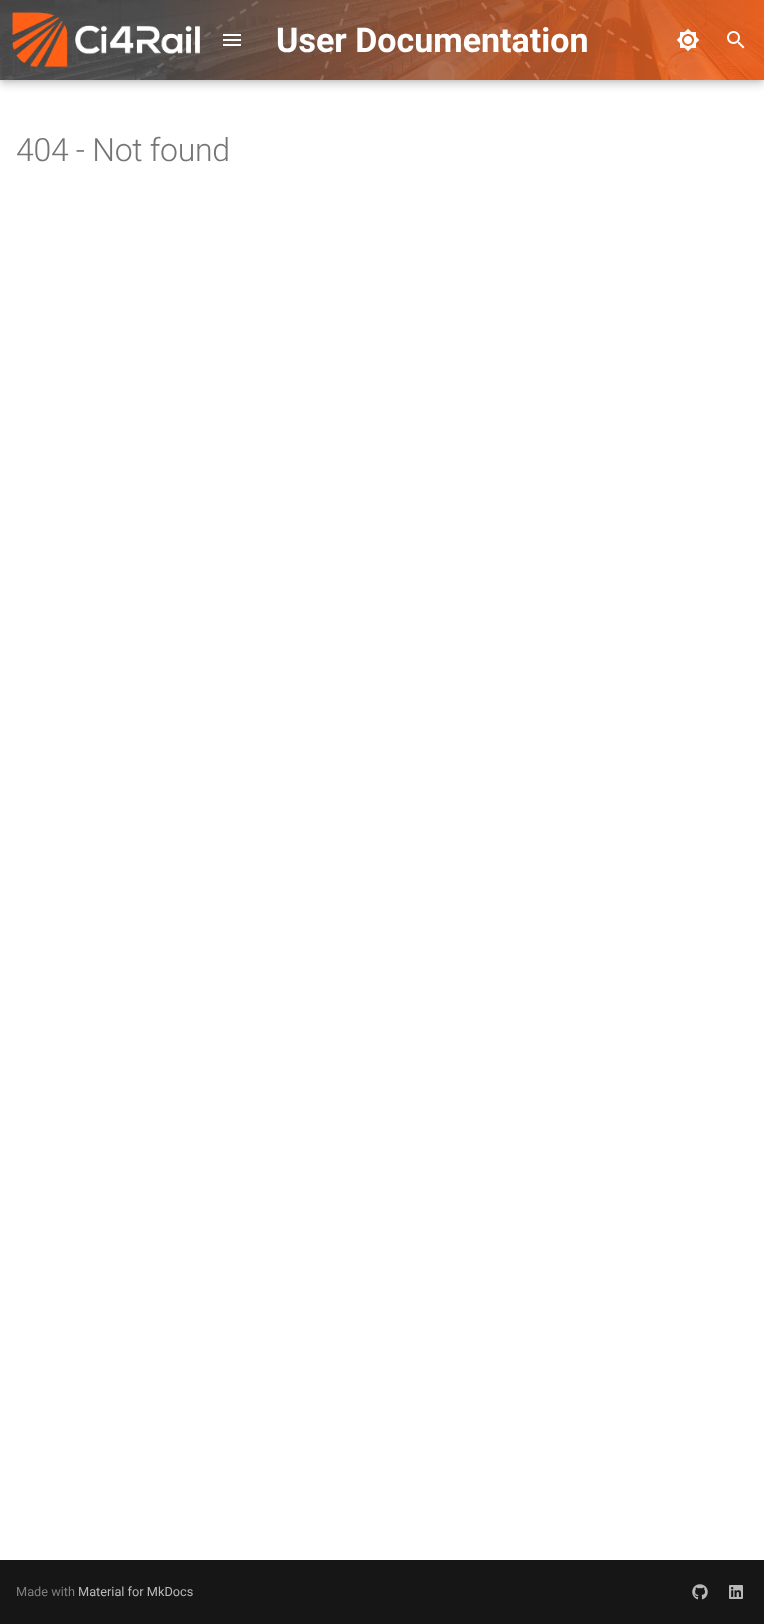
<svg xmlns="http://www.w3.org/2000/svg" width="764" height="1624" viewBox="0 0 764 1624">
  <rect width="100%" height="100%" fill="#fff"/>
  <path d="M0 4h764v80H0z" fill="#00000033" filter="blur(4px)"/>
  <path d="M0 0h764v80H0z" fill="#0000001a" filter="blur(2px)"/>
  <image x="0" y="0" width="764" height="80" href="img/1.png"/>
  <image x="12" y="12" width="188" height="56" href="img/2.png"/>
  <image x="223" y="34" width="18" height="12" href="img/3.png"/>
  <image x="676" y="28" width="24" height="24" href="img/4.png"/>
  <image x="727" y="31" width="18" height="18" href="img/5.png"/>
  <path d="M0 1560h764v64H0z" fill="#161616"/>
  <image x="692" y="1584" width="16" height="16" href="img/6.png"/>
  <image x="729" y="1585" width="14" height="14" href="img/7.png"/>
  <text x="276" y="52" font-family="Roboto" font-size="34" font-weight="bold" fill="#fff">User Documentation</text>
  <text x="16" y="161" font-family="Roboto" font-size="32" font-weight="300" letter-spacing="-0.3" fill="#757575">404 - Not found</text>
  <text x="16" y="1596" font-family="Roboto" font-size="12.75" fill="#7f7f7f">Made with</text>
  <text x="78" y="1596" font-family="Roboto" font-size="12.75" fill="#b9b9b9">Material for MkDocs</text>
</svg>
